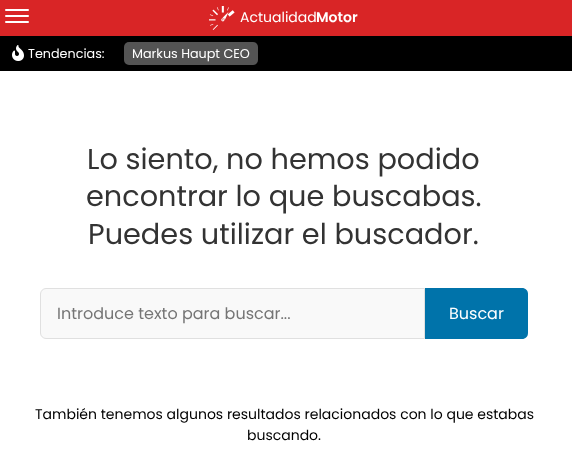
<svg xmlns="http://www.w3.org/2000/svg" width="572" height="453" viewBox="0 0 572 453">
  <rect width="100%" height="100%" fill="#fff"/>
  <path d="M0 0h572v36H0z" fill="#d92526"/>
  <rect x="5" y="9" width="24" height="2" rx="1" fill="#fff"/>
  <rect x="5" y="15" width="24" height="2" rx="1" fill="#fff"/>
  <rect x="5" y="21" width="24" height="2" rx="1" fill="#fff"/>
  <image x="209" y="6" width="26" height="24" href="img/1.png"/>
  <path d="M0 36h572v35H0z" fill="#000"/>
  <image x="12" y="45" width="12" height="16" href="img/2.png"/>
  <rect x="124" y="42" width="134" height="23" rx="5" fill="#545454"/>
  <path d="M46 288.5H424.5V338.5H46C43 338.5 40.5 336 40.5 333V294C40.5 291 43 288.5 46 288.5Z" fill="#f9f9f9" stroke="#e0e0e0"/>
  <path d="M425 288H522C525.5 288 528 290.5 528 294V333C528 336.5 525.5 339 522 339H425Z" fill="#0073aa"/>
  <text x="240" y="22" font-family="Poppins" font-size="14" fill="#fff">Actualidad</text>
  <text x="316" y="22" font-family="Poppins" font-size="14" font-weight="600" fill="#fff">Motor</text>
  <g font-family="Poppins" font-size="12.75" fill="#fff">
    <text x="28" y="58">Tendencias:</text>
    <text x="132" y="58">Markus Haupt CEO</text>
  </g>
  <g font-family="Poppins" font-size="28.75" fill="#333">
    <text x="87" y="169">Lo siento, no hemos podido</text>
    <text x="86" y="206">encontrar lo que buscabas.</text>
    <text x="88" y="244">Puedes utilizar el buscador.</text>
  </g>
  <text x="57" y="319" font-family="Poppins" font-size="16" fill="#757575">Introduce texto para buscar...</text>
  <text x="449" y="319" font-family="Poppins" font-size="16" fill="#fff">Buscar</text>
  <g font-family="Poppins" font-size="14" fill="#000">
    <text x="35" y="419">También tenemos algunos resultados relacionados con lo que estabas</text>
    <text x="247" y="440">buscando.</text>
  </g>
</svg>
